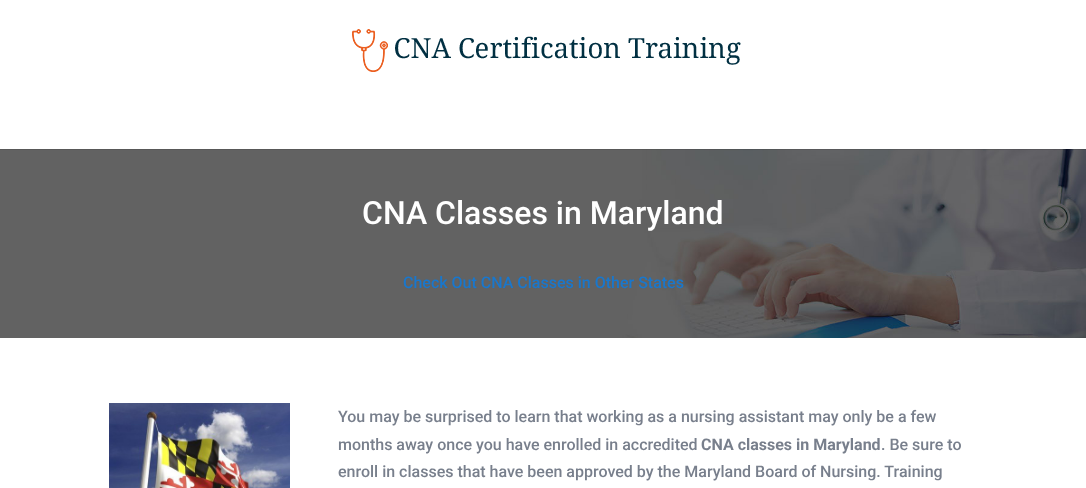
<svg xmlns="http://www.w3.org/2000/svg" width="1086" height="488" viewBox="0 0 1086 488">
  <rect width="100%" height="100%" fill="#fff"/>
  <image x="0" y="149" width="1086" height="189" href="img/2.png"/>
  <path d="M0 149h1086v1H0z" fill="#0000001a"/>
  <image x="352" y="29" width="389" height="43" href="img/1.png"/>
  <image x="109" y="403" width="181" height="85" href="img/3.png"/>
  <text x="362" y="224" font-family="Roboto" font-size="32" font-weight="500" fill="#fff">CNA Classes in Maryland</text>
  <text x="403" y="288" font-family="Roboto" font-size="16" font-weight="500" fill="#1977cc">Check Out CNA Classes in Other States</text>
  <g font-family="Roboto" font-size="16" font-weight="500" fill="#787f8c">
    <text x="338" y="422">You may be surprised to learn that working as a nursing assistant may only be a few</text>
    <text x="338" y="450">months away once you have enrolled in accredited</text>
  </g>
  <text x="701" y="450" font-family="Roboto" font-size="16" font-weight="bold" fill="#787f8c">CNA classes in Maryland</text>
  <g font-family="Roboto" font-size="16" font-weight="500" fill="#787f8c">
    <text x="881" y="450">. Be sure to</text>
    <text x="338" y="477">enroll in classes that have been approved by the Maryland Board of Nursing. Training</text>
  </g>
</svg>
